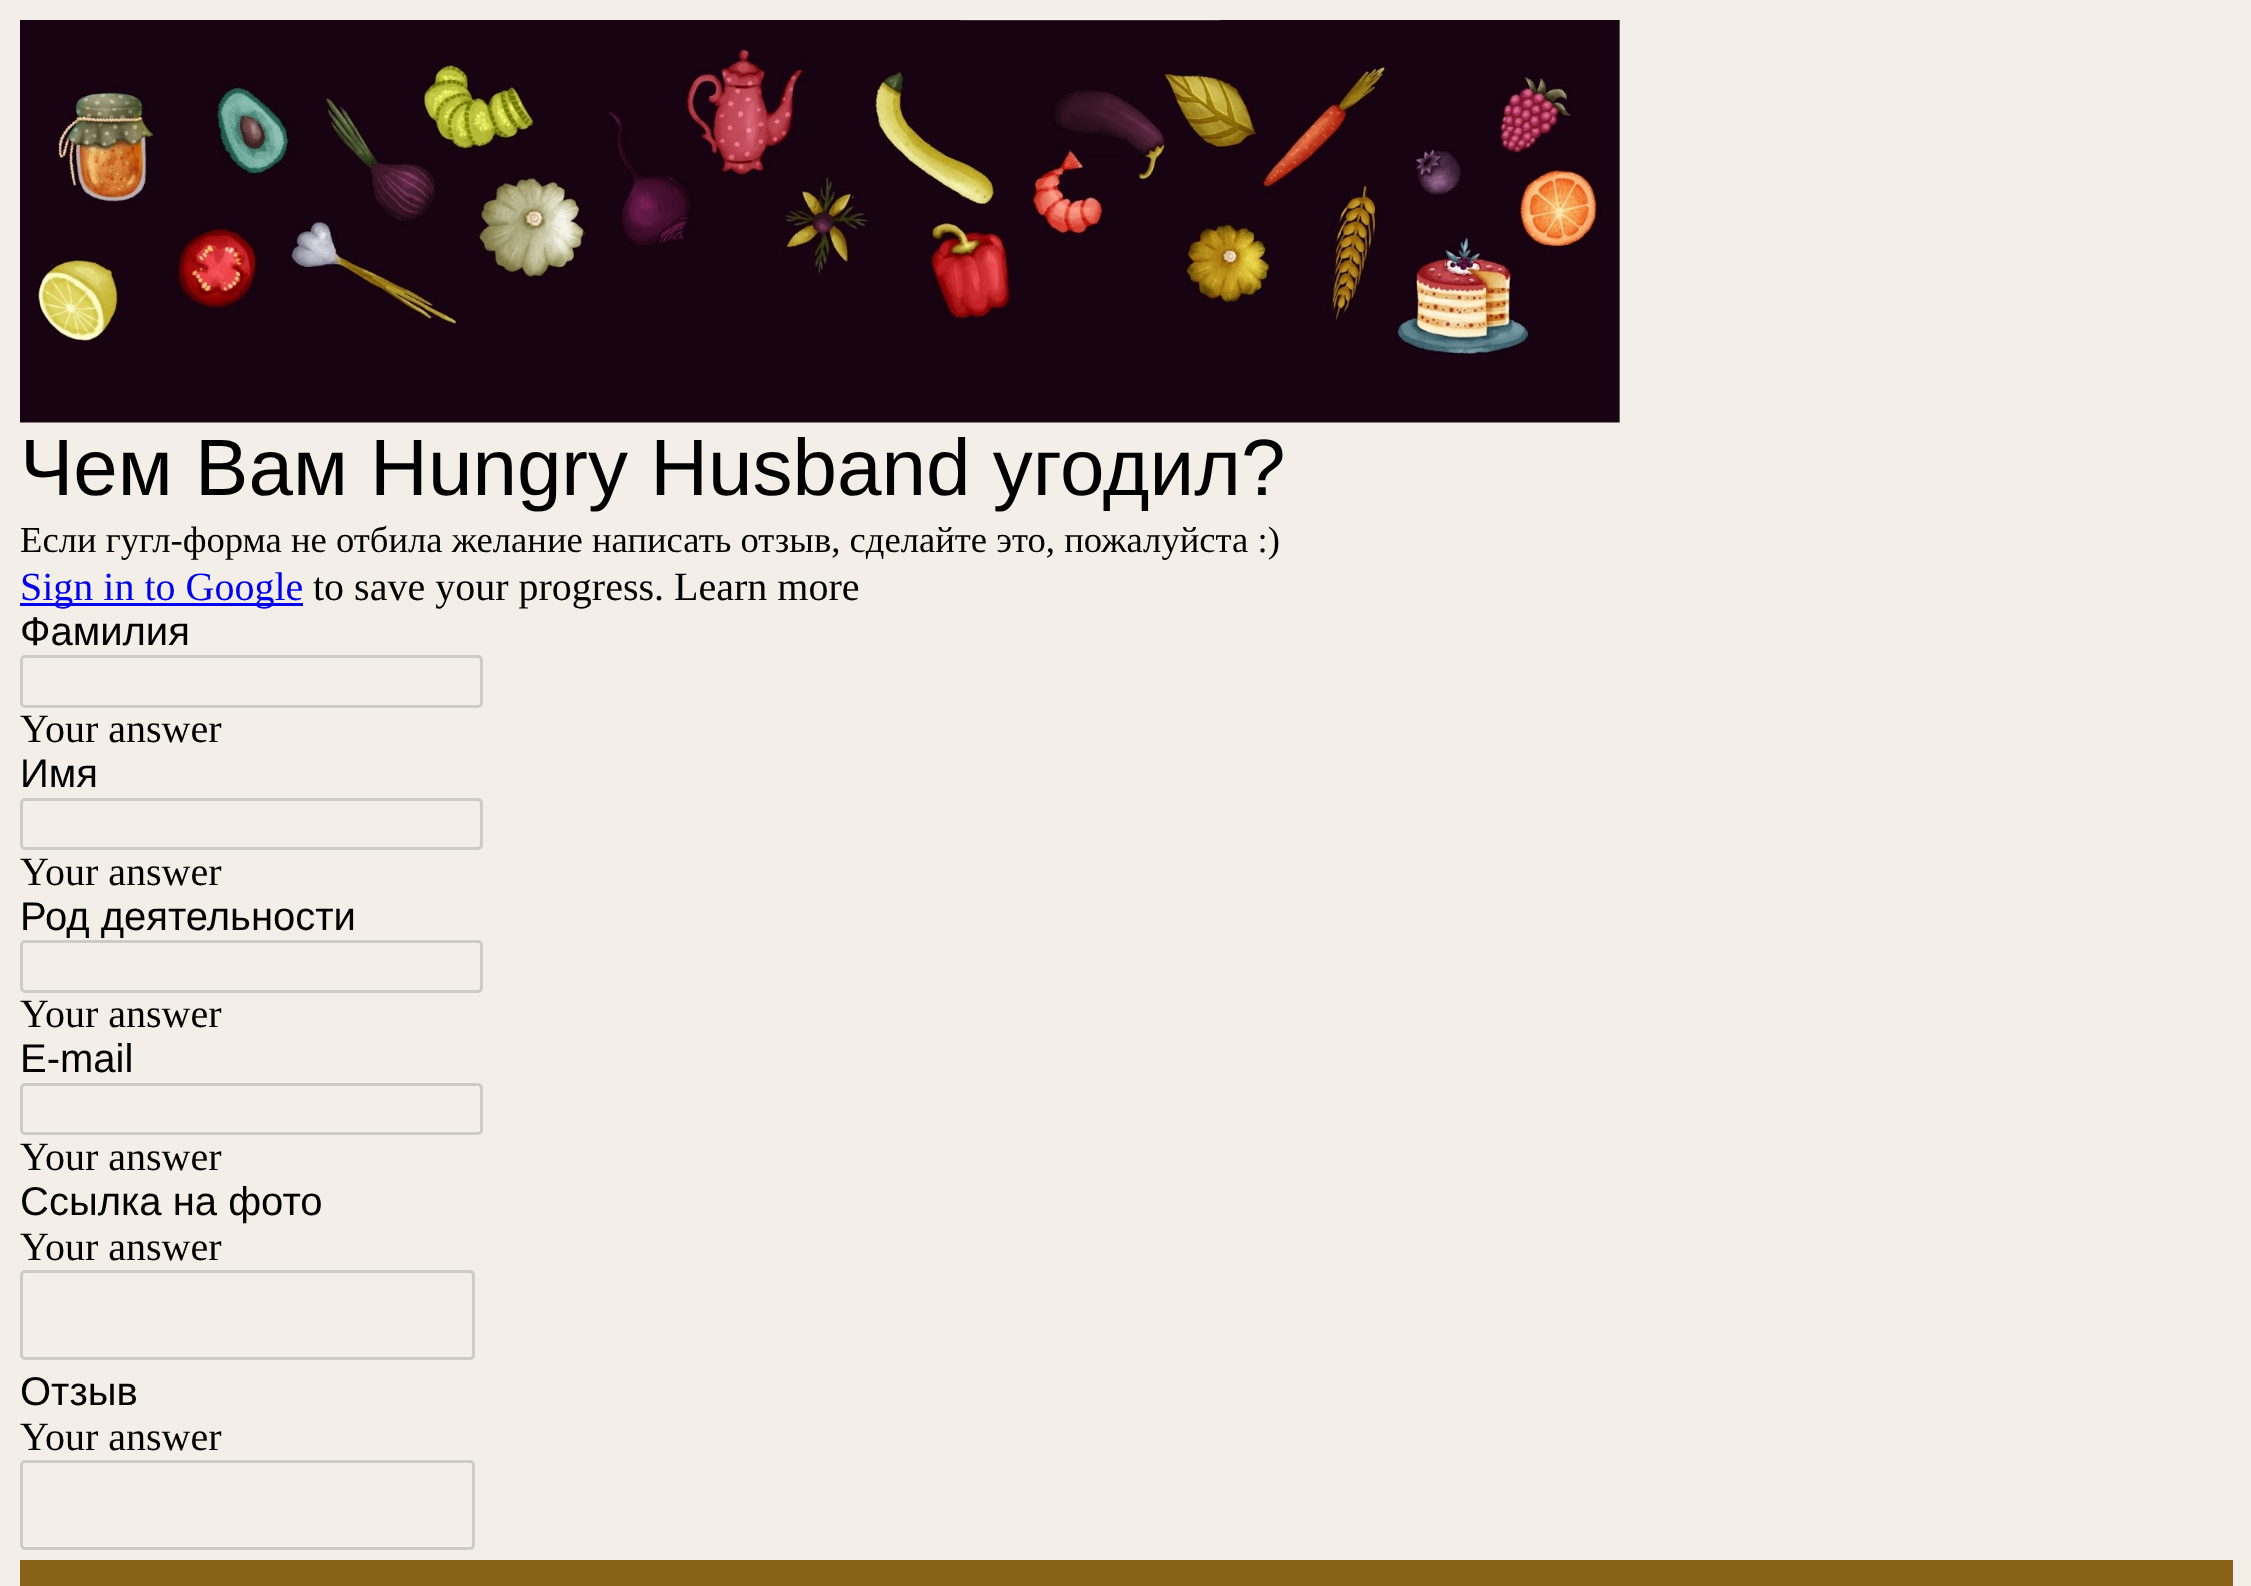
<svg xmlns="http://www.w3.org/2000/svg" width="2251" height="1586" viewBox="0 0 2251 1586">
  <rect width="100%" height="100%" fill="#f3efe8"/>
  <image x="20" y="20" width="1600" height="403" href="img/1.png"/>
  <path d="M20 603h283v3H20z" fill="#00e"/>
  <rect x="21.5" y="656.5" width="460" height="50" rx="3.5" fill="none" stroke="#cdcbc7" stroke-width="3"/>
  <rect x="21.5" y="799.5" width="460" height="49" rx="3.5" fill="none" stroke="#cdcbc7" stroke-width="3"/>
  <rect x="21.5" y="941.5" width="460" height="50" rx="3.5" fill="none" stroke="#cdcbc7" stroke-width="3"/>
  <rect x="21.5" y="1084.5" width="460" height="49" rx="3.5" fill="none" stroke="#cdcbc7" stroke-width="3"/>
  <rect x="21.5" y="1271.5" width="452" height="87" rx="3.5" fill="none" stroke="#cdcbc7" stroke-width="3"/>
  <rect x="21.5" y="1461.5" width="452" height="87" rx="3.5" fill="none" stroke="#cdcbc7" stroke-width="3"/>
  <path d="M20 1560h2213v26H20z" fill="#886217"/>
  <text x="20" y="495" font-family="Liberation Sans" font-size="80" fill="#000">Чем Вам Hungry Husband угодил?</text>
  <text x="20" y="552" font-family="Liberation Serif" font-size="36.65" fill="#000">Если гугл-форма не отбила желание написать отзыв, сделайте это, пожалуйста :)</text>
  <text x="20" y="600" font-family="Liberation Serif" font-size="40" fill="#00e">Sign in to Google</text>
  <text x="313" y="600" font-family="Liberation Serif" font-size="40" fill="#000">to save your progress. Learn more</text>
  <text x="20" y="645" font-family="Liberation Sans" font-size="40" fill="#000">Фамилия</text>
  <text x="20" y="742" font-family="Liberation Serif" font-size="40" fill="#000">Your answer</text>
  <text x="20" y="787" font-family="Liberation Sans" font-size="40" fill="#000">Имя</text>
  <text x="20" y="885" font-family="Liberation Serif" font-size="40" fill="#000">Your answer</text>
  <text x="20" y="930" font-family="Liberation Sans" font-size="40" fill="#000">Род деятельности</text>
  <text x="20" y="1027" font-family="Liberation Serif" font-size="40" fill="#000">Your answer</text>
  <text x="20" y="1072" font-family="Liberation Sans" font-size="40" fill="#000">E-mail</text>
  <text x="20" y="1170" font-family="Liberation Serif" font-size="40" fill="#000">Your answer</text>
  <text x="20" y="1215" font-family="Liberation Sans" font-size="40" fill="#000">Ссылка на фото</text>
  <text x="20" y="1260" font-family="Liberation Serif" font-size="40" fill="#000">Your answer</text>
  <text x="20" y="1405" font-family="Liberation Sans" font-size="40" fill="#000">Отзыв</text>
  <text x="20" y="1450" font-family="Liberation Serif" font-size="40" fill="#000">Your answer</text>
</svg>
